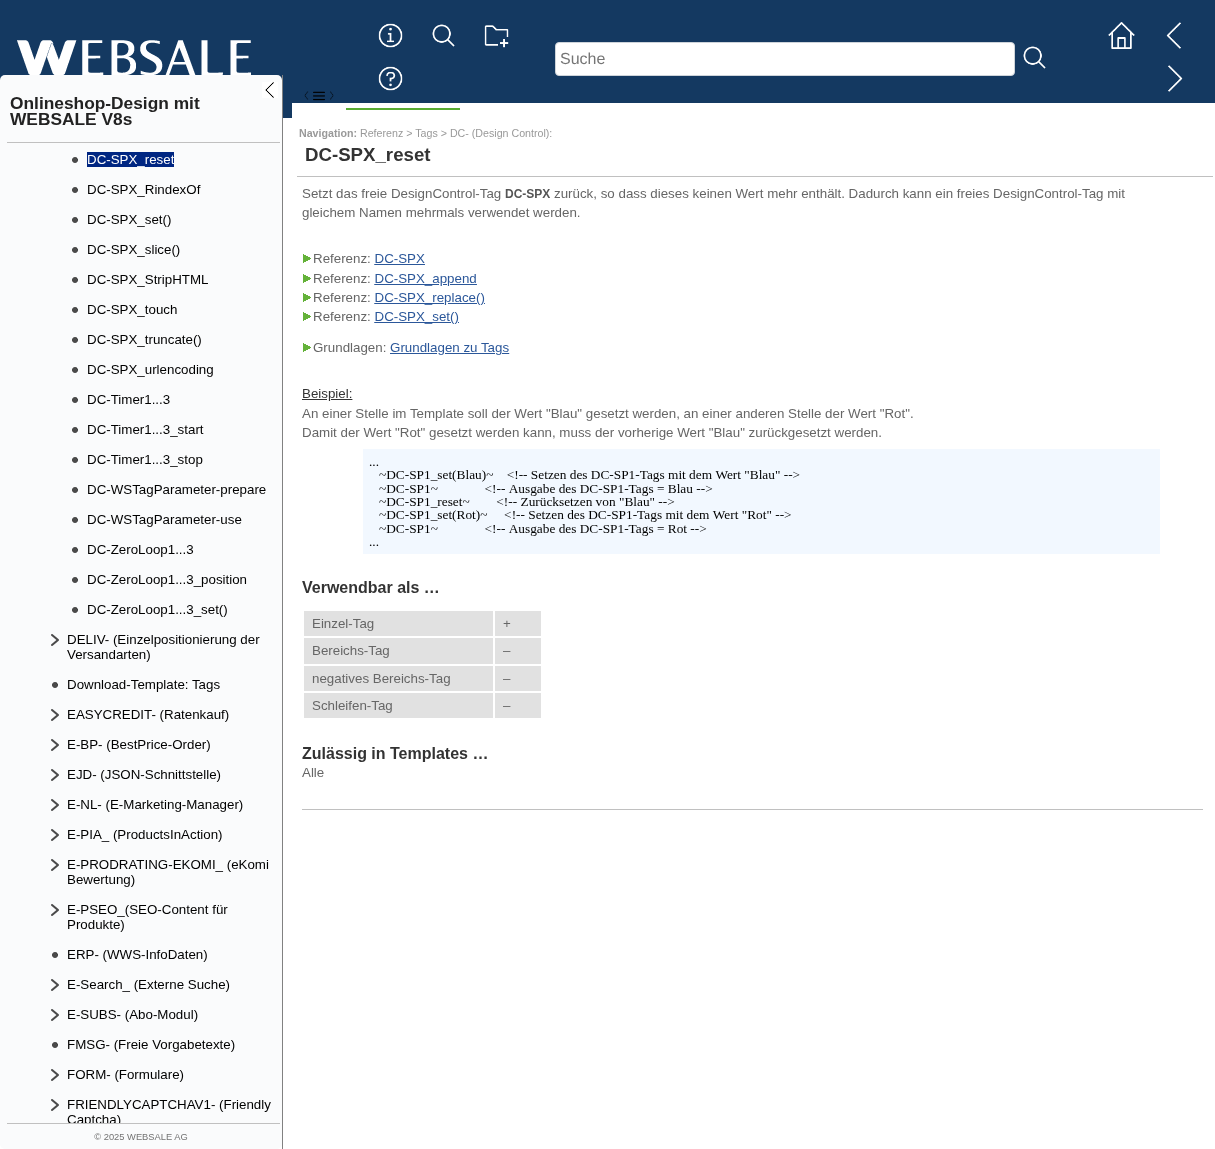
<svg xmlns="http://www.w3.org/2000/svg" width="1215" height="1149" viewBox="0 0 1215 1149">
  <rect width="100%" height="100%" fill="#fff"/>
  <path d="M0 0h1215v118H0z" fill="#143961"/>
  <image x="17" y="40" width="234" height="35" href="img/1.png"/>
  <image x="378" y="23" width="25" height="25" href="img/2.png"/>
  <image x="432" y="24" width="23" height="23" href="img/3.png"/>
  <image x="484" y="25" width="25" height="23" href="img/4.png"/>
  <image x="378" y="66" width="25" height="25" href="img/5.png"/>
  <rect x="555.5" y="42.5" width="459" height="33" rx="3.5" fill="#fff" stroke="#ced4da"/>
  <image x="1023" y="46" width="23" height="23" href="img/3.png"/>
  <image x="1108" y="22" width="27" height="27" href="img/6.png"/>
  <image x="1166" y="22" width="15" height="27" href="img/7.png"/>
  <image x="1168" y="65" width="15" height="27" href="img/8.png"/>
  <path d="M282 75h1v1074H282z" fill="#818181"/>
  <rect y="75" width="282" height="1074" rx="5" fill="#fafbfc"/>
  <image x="7" y="97" width="273" height="1043" href="img/9.png"/>
  <image x="262" y="82" width="16" height="16" href="img/10.png"/>
  <image x="304" y="91" width="5" height="9" href="img/11.png"/>
  <image x="313" y="91" width="12" height="10" href="img/12.png"/>
  <image x="330" y="91" width="4" height="9" href="img/13.png"/>
  <path d="M292 103h923v15H292z" fill="#fff"/>
  <path d="M346 108h114v2H346z" fill="#58ac32"/>
  <image x="297" y="129" width="916" height="681" href="img/14.png"/>
  <text x="560" y="64" font-family="Liberation Sans" font-size="16" fill="#757575">Suche</text>
</svg>
